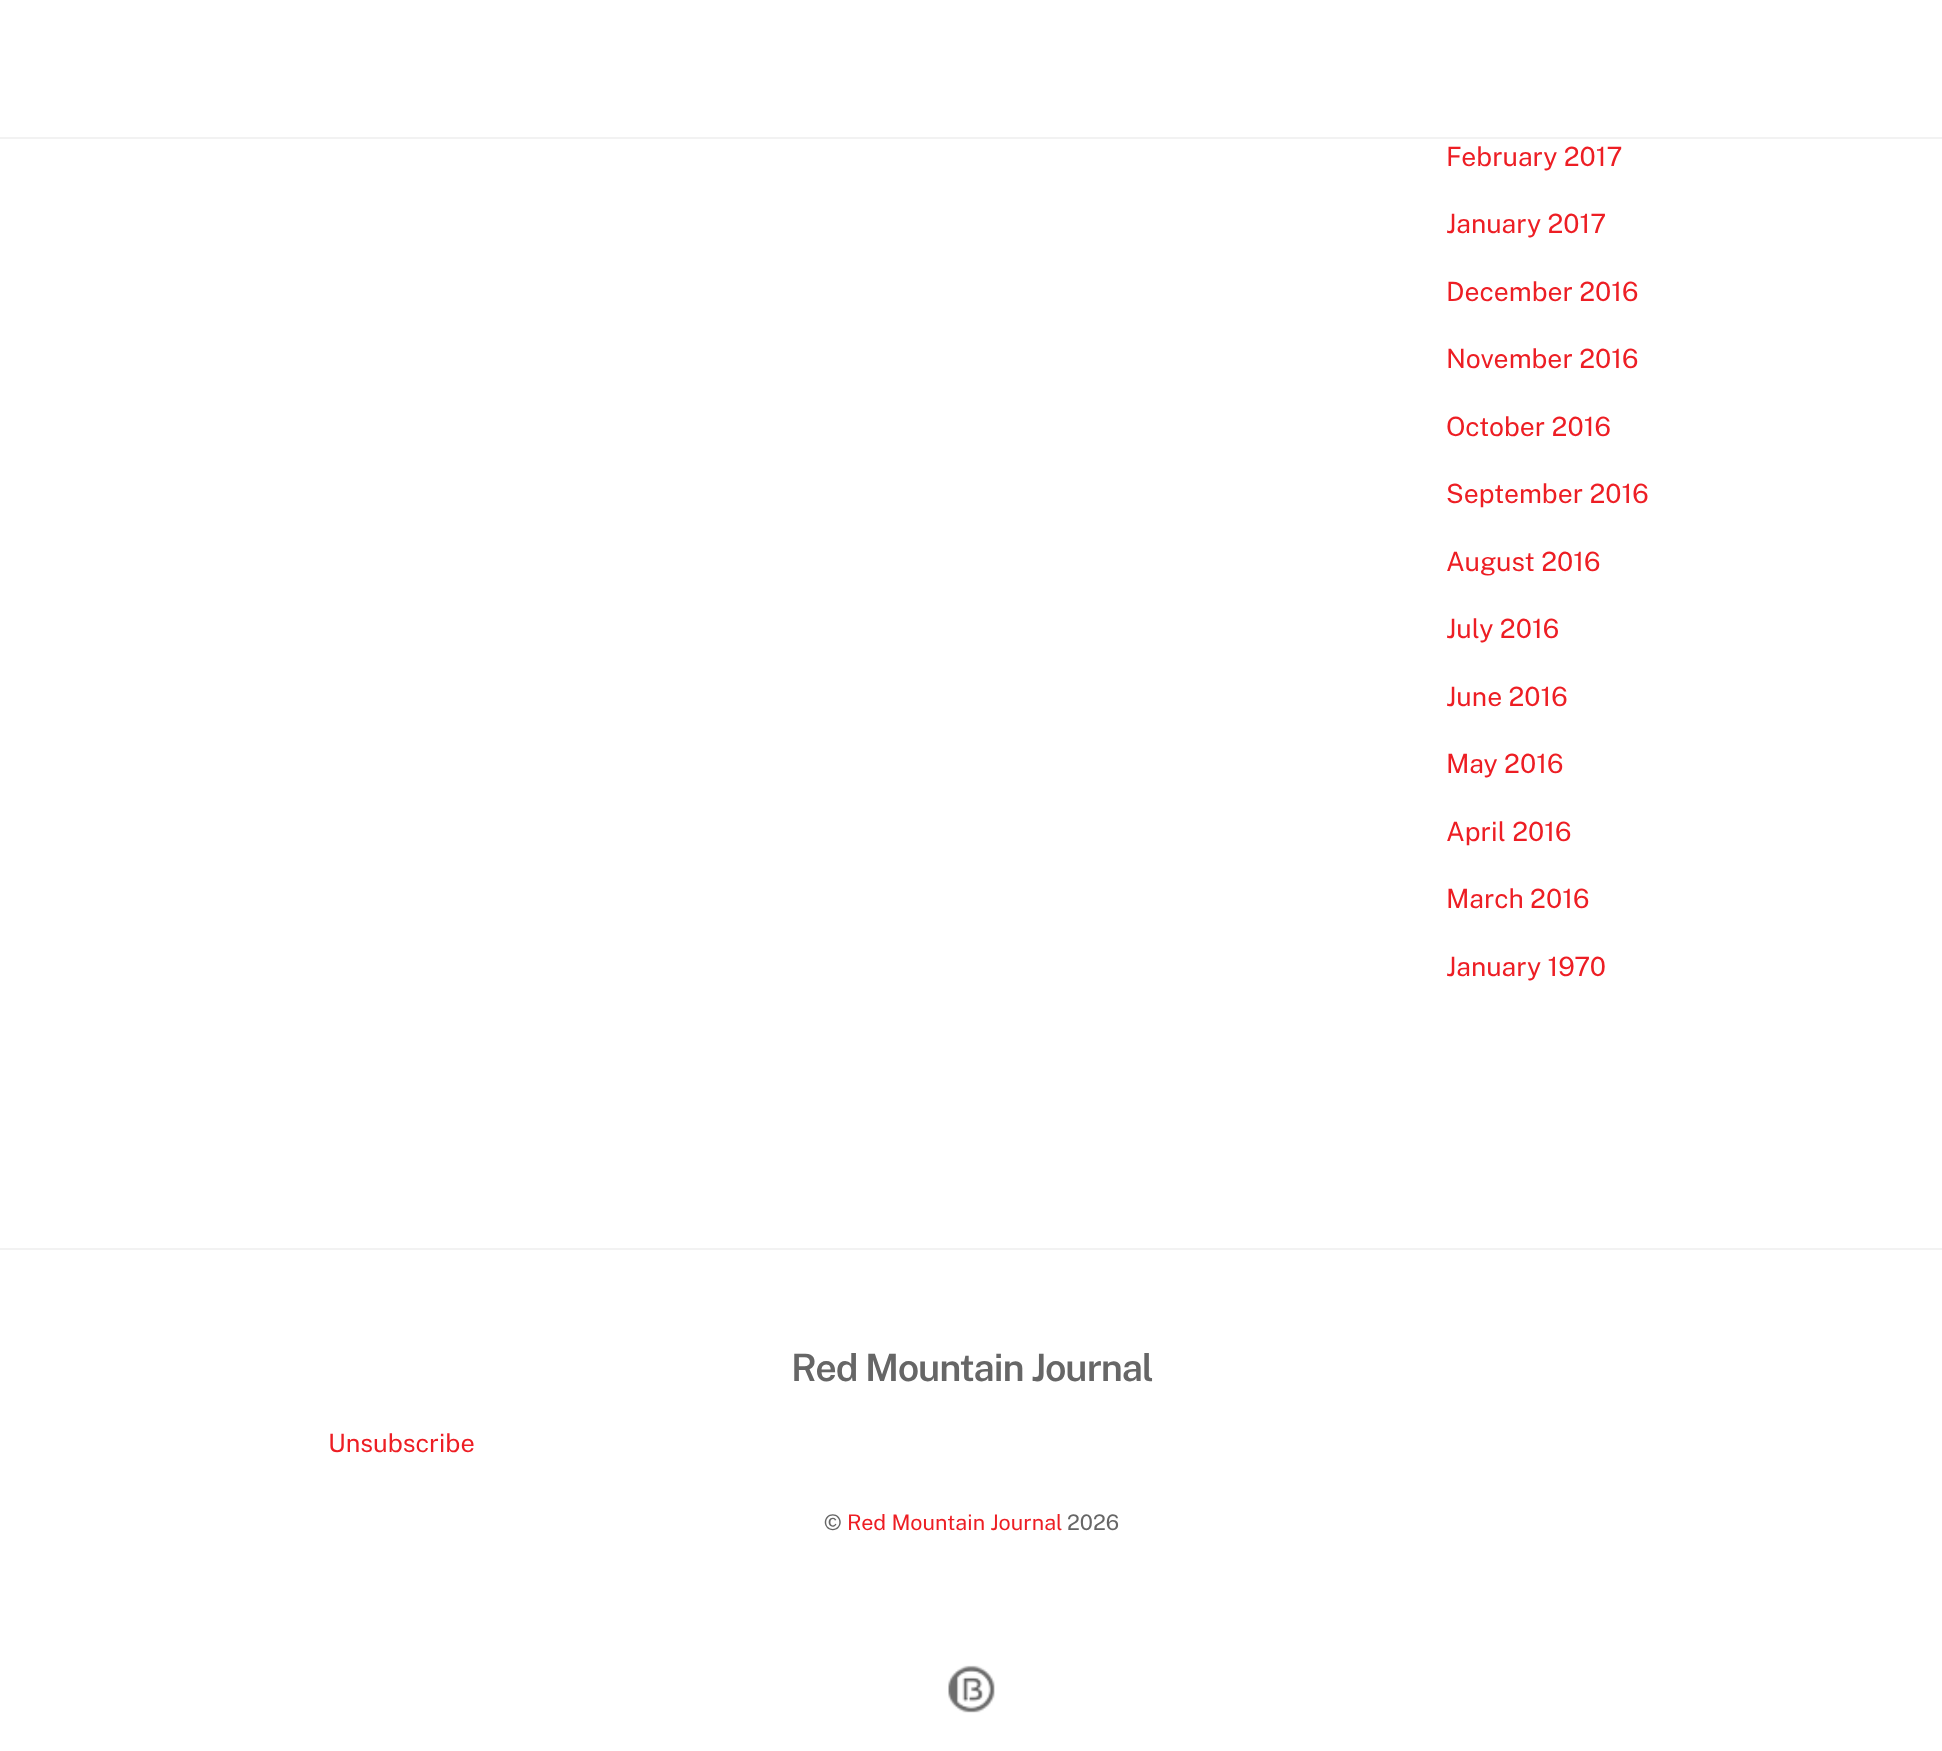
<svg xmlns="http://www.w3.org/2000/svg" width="1942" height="1751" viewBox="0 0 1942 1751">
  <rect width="100%" height="100%" fill="#fff"/>
  <path d="M0 137h1942v2H0z" fill="#f2f2f2"/>
  <path d="M0 1248h1942v2H0z" fill="#f2f2f2"/>
  <image x="948" y="1665" width="47" height="48" href="img/1.png"/>
  <g font-family="Public Sans" font-size="26.5" fill="#ed1e24">
    <text x="1446" y="166">February 2017</text>
    <text x="1446" y="233">January 2017</text>
    <text x="1446" y="301">December 2016</text>
    <text x="1446" y="368">November 2016</text>
    <text x="1446" y="436">October 2016</text>
    <text x="1446" y="503">September 2016</text>
    <text x="1446" y="571">August 2016</text>
    <text x="1446" y="638">July 2016</text>
    <text x="1446" y="706">June 2016</text>
    <text x="1446" y="773">May 2016</text>
    <text x="1446" y="841">April 2016</text>
    <text x="1446" y="908">March 2016</text>
    <text x="1446" y="976">January 1970</text>
  </g>
  <text x="791" y="1381" font-family="Public Sans" font-size="37.75" font-weight="600" letter-spacing="-1.1" fill="#666">Red Mountain Journal</text>
  <text x="328" y="1452" font-family="Public Sans" font-size="25.25" fill="#ed1e24">Unsubscribe</text>
  <text x="824" y="1530" font-family="Public Sans" font-size="21.5" fill="#666">©</text>
  <text x="847" y="1530" font-family="Public Sans" font-size="21.5" fill="#ed1e24">Red Mountain Journal</text>
  <text x="1067" y="1530" font-family="Public Sans" font-size="21.5" fill="#666">2026</text>
</svg>
